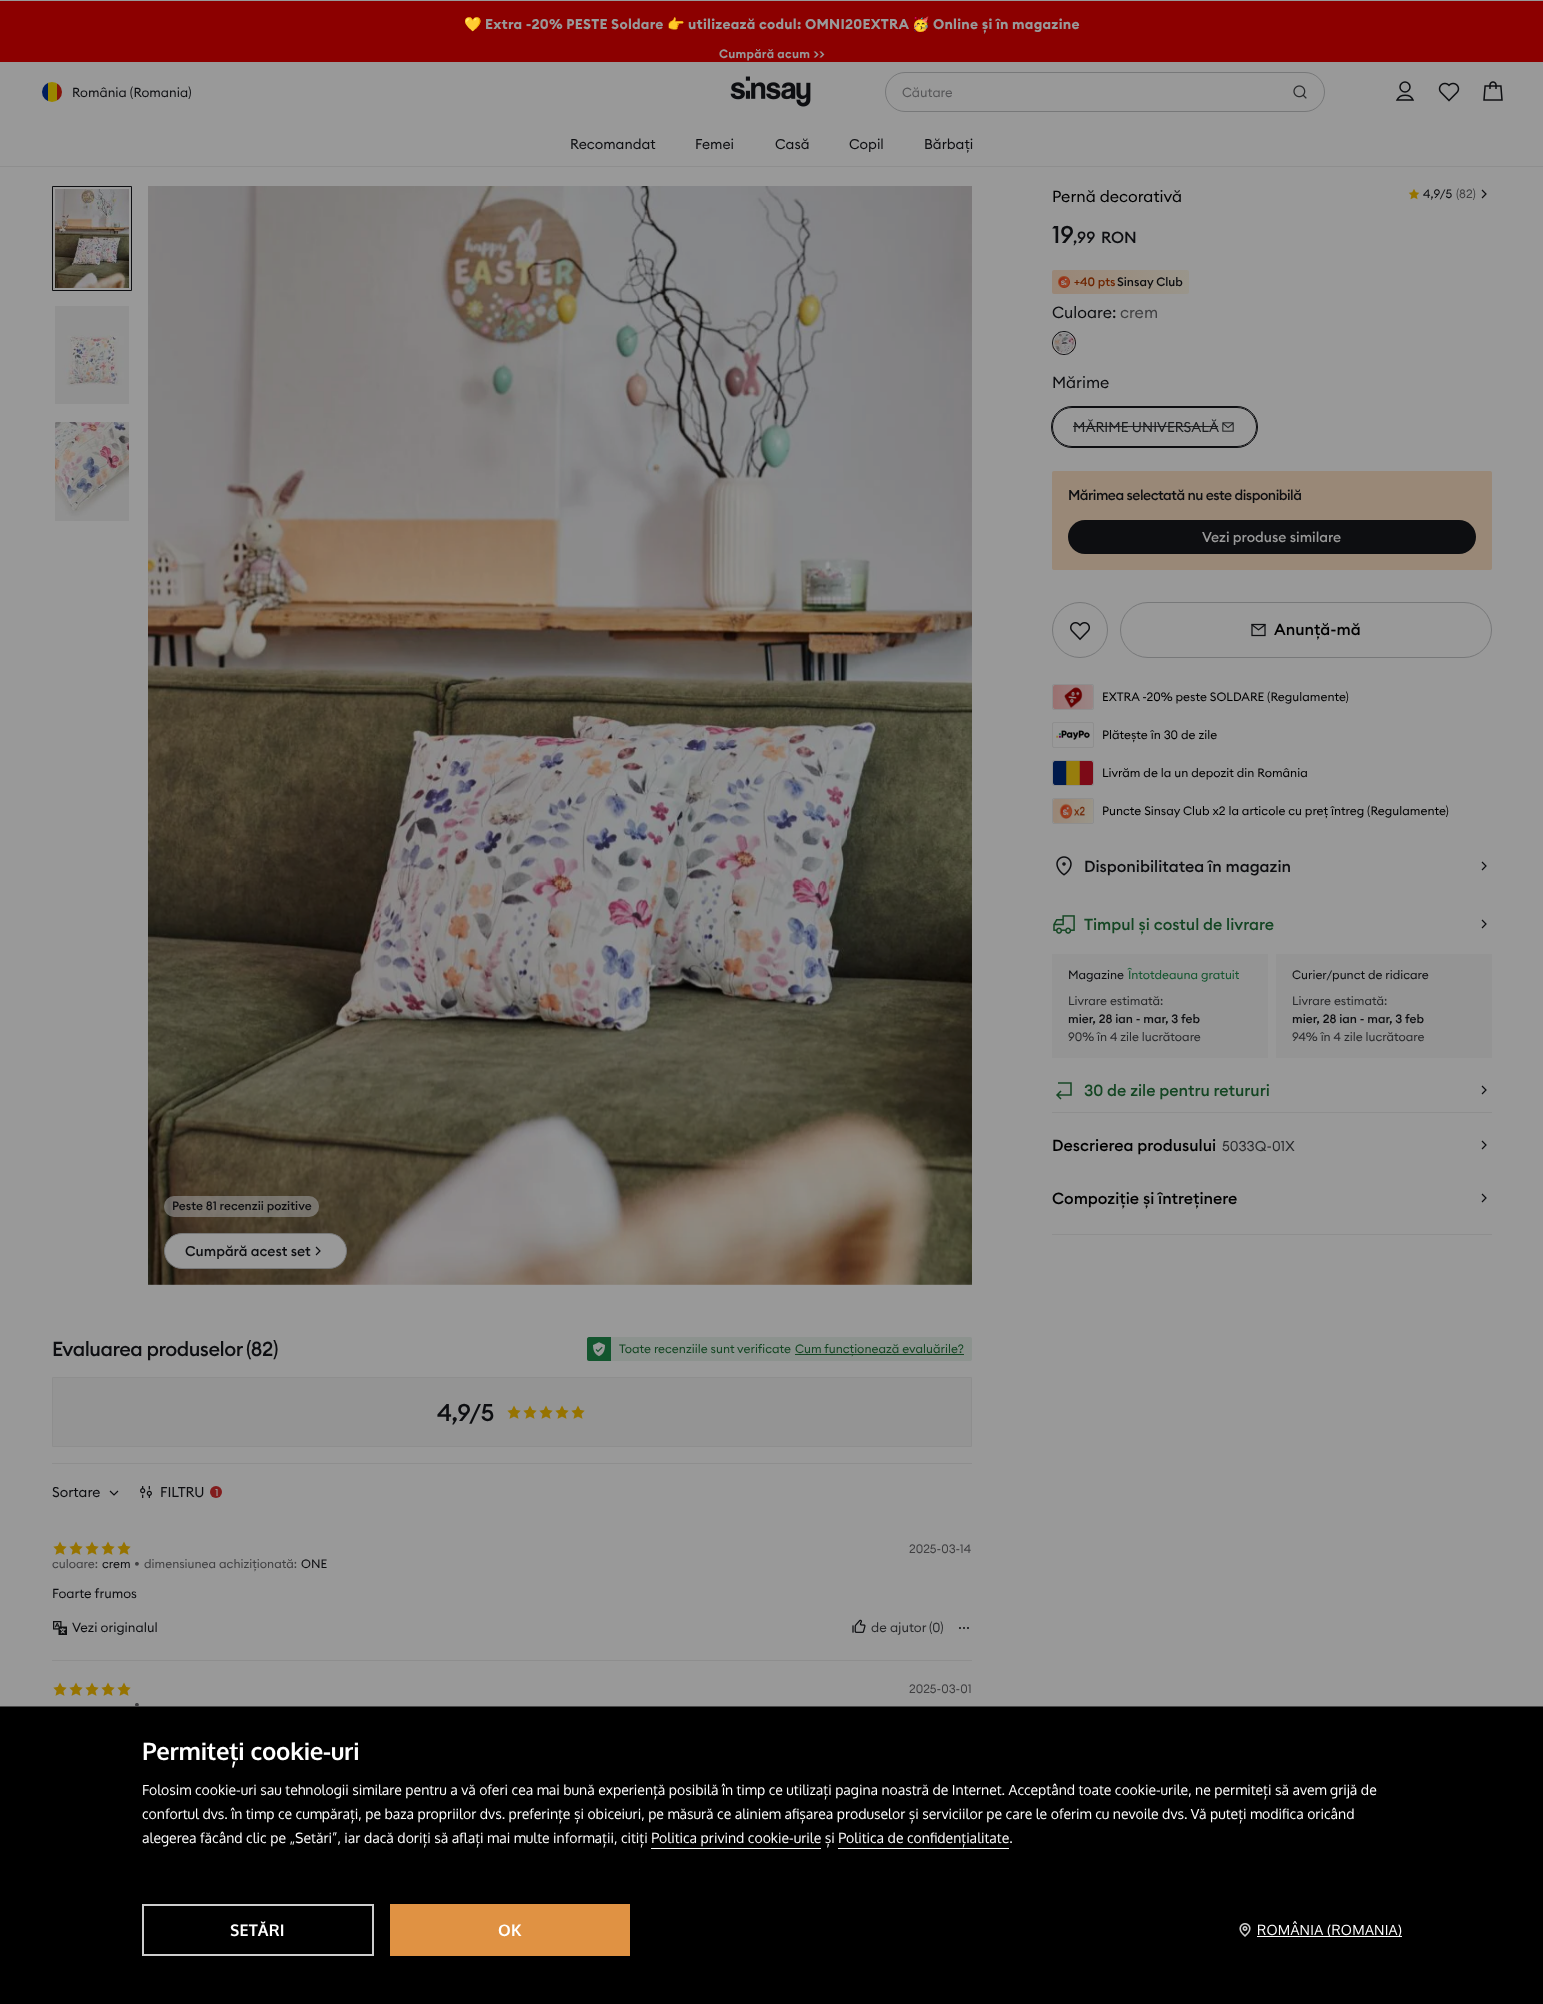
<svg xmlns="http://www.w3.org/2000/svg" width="1543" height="2004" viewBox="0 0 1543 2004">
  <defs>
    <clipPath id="clip1"><rect x="42" y="82" width="20" height="20" rx="10"/></clipPath>
    <linearGradient id="g1" gradientUnits="userSpaceOnUse" x1="1052" y1="283" x2="1189" y2="281"><stop offset="0.02" stop-color="#998676"/><stop offset="1" stop-color="#99958b"/></linearGradient>
    <clipPath id="clip2"><path d="M1084 904h190v40H1084z"/></clipPath>
  </defs>
  <rect width="100%" height="100%" fill="#999"/>
  <path d="M0 1h1543v61H0z" fill="#8c0000"/>
  <g clip-path="url(#clip1)">
    <path d="M42 82h6v20H42z" fill="#001d5e"/>
    <path d="M48 82h9v20H48z" fill="#998500"/>
    <path d="M57 82h5v20H57z" fill="#85140a"/>
  </g>
  <image x="730" y="76" width="81" height="31" href="img/1.png"/>
  <rect x="885.5" y="72.5" width="439" height="39" rx="19.5" fill="none" stroke="#777879"/>
  <image x="1293" y="85" width="14" height="14" href="img/2.png"/>
  <circle cx="1405" cy="87" r="5" fill="none" stroke="#0d0e11" stroke-width="1.5"/>
  <path d="M1413 100H1397C1400 93.5 1410.5 93.5 1413 100Z" fill="none" stroke="#0d0e11" stroke-width="1.5" stroke-linecap="round"/>
  <image x="1438" y="82" width="22" height="20" href="img/3.png"/>
  <image x="1483" y="81" width="20" height="20" href="img/4.png"/>
  <path d="M0 166h1543v1H0z" fill="#8e8e8e"/>
  <image x="1408" y="189" width="12" height="11" href="img/5.png"/>
  <path d="M1482 190L1486 194L1482 198" fill="none" stroke="#0d0e11" stroke-width="1.2"/>
  <rect x="1052" y="270" width="137" height="24" rx="2" fill="url(#g1)"/>
  <image x="1058" y="276" width="12" height="12" href="img/6.png"/>
  <image x="1052" y="331" width="24" height="24" href="img/7.png"/>
  <circle cx="1064" cy="343" r="11.5" fill="none" stroke="#0d0e11"/>
  <circle cx="1064" cy="343" r="10.5" fill="none" stroke="#999"/>
  <rect x="1052.5" y="407.5" width="204" height="39" rx="19.5" fill="none" stroke="#0d0e11"/>
  <path d="M1073 426h145v1H1073z" fill="#1b1d1f"/>
  <image x="1222" y="422" width="12" height="10" href="img/8.png"/>
  <rect x="1051.5" y="406.5" width="206" height="41" rx="20.5" fill="none" stroke="#0d0e11"/>
  <rect x="1052" y="471" width="440" height="99" rx="2" fill="#987"/>
  <rect x="1068" y="520" width="408" height="34" rx="17" fill="#0d0e11"/>
  <circle cx="1080" cy="630" r="27.5" fill="none" stroke="#777879"/>
  <image x="1070" y="622" width="20" height="19" href="img/9.png"/>
  <rect x="1120.5" y="602.5" width="371" height="55" rx="27.5" fill="none" stroke="#777879"/>
  <image x="1251" y="623" width="15" height="14" href="img/10.png"/>
  <rect x="1052.5" y="684.5" width="41" height="25" rx="1.5" fill="none" stroke="#8e8e8e"/>
  <image x="1053" y="685" width="40" height="24" href="img/11.png"/>
  <rect x="1052.5" y="722.5" width="41" height="25" rx="1.5" fill="none" stroke="#8e8e8e"/>
  <image x="1056" y="730" width="34" height="10" href="img/12.png"/>
  <rect x="1052.5" y="760.5" width="41" height="25" rx="1.5" fill="none" stroke="#8e8e8e"/>
  <image x="1053" y="761" width="40" height="24" href="img/13.png"/>
  <rect x="1052.5" y="798.5" width="41" height="25" rx="1.5" fill="none" stroke="#8e8e8e"/>
  <image x="1053" y="799" width="40" height="24" href="img/14.png"/>
  <image x="1056" y="856" width="16" height="20" href="img/15.png"/>
  <path d="M1482 862L1486 866L1482 870" fill="none" stroke="#0d0e11" stroke-width="1.2"/>
  <image x="1053" y="915" width="22" height="19" href="img/16.png"/>
  <path d="M1482 920L1486 924L1482 928" fill="none" stroke="#0d0e11" stroke-width="1.2"/>
  <path d="M1052 954h216v104H1052z" fill="#949494"/>
  <path d="M1276 954h216v104H1276z" fill="#949494"/>
  <path d="M1052 1112h440v1H1052z" fill="#8e8e8e"/>
  <image x="1056" y="1082" width="16" height="18" href="img/17.png"/>
  <path d="M1482 1086L1486 1090L1482 1094" fill="none" stroke="#0d0e11" stroke-width="1.2"/>
  <path d="M1482 1141L1486 1145L1482 1149" fill="none" stroke="#0d0e11" stroke-width="1.2"/>
  <path d="M1052 1234h440v1H1052z" fill="#8e8e8e"/>
  <path d="M1482 1194L1486 1198L1482 1202" fill="none" stroke="#0d0e11" stroke-width="1.2"/>
  <path d="M52.5 186.5h79v104H52.5z" fill="none" stroke="#0d0e11"/>
  <image x="55" y="189" width="74" height="99" href="img/18.png"/>
  <image x="55" y="306" width="74" height="98" href="img/19.png"/>
  <image x="55" y="422" width="74" height="99" href="img/20.png"/>
  <image x="148" y="186" width="824" height="1099" href="img/21.png"/>
  <rect x="164" y="1196" width="155" height="21" rx="10" fill="#99999999"/>
  <rect x="164.5" y="1233.5" width="182" height="35" rx="17.5" fill="#999" stroke="#777879"/>
  <path d="M316 1247L320 1251L316 1255" fill="none" stroke="#0d0e11" stroke-width="1.2"/>
  <rect x="587" y="1337" width="385" height="24" rx="2" fill="#8c928e"/>
  <path d="M589 1337H611V1361H589C588 1361 587 1360 587 1359V1339C587 1338 588 1337 589 1337Z" fill="#13552e"/>
  <image x="593" y="1342" width="12" height="15" href="img/22.png"/>
  <path d="M795 1354h169v1H795z" fill="#144623"/>
  <path d="M52.5 1377.5h919v69H52.5z" fill="#949494" stroke="#8e8e8e"/>
  <image x="507" y="1405" width="14" height="14" href="img/23.png"/>
  <image x="523" y="1405" width="14" height="14" href="img/23.png"/>
  <image x="539" y="1405" width="14" height="14" href="img/23.png"/>
  <image x="555" y="1405" width="14" height="14" href="img/23.png"/>
  <image x="571" y="1405" width="14" height="14" href="img/23.png"/>
  <path d="M52 1463h920v1H52z" fill="#8e8e8e"/>
  <path d="M118 1491L114 1495L110 1491" fill="none" stroke="#0d0e11" stroke-width="1.2"/>
  <image x="140" y="1486" width="12" height="12" href="img/24.png"/>
  <circle cx="216" cy="1492" r="6" fill="#821c1d"/>
  <image x="53" y="1541" width="14" height="14" href="img/25.png"/>
  <image x="69" y="1541" width="14" height="14" href="img/25.png"/>
  <image x="85" y="1541" width="14" height="14" href="img/25.png"/>
  <image x="101" y="1541" width="14" height="14" href="img/25.png"/>
  <image x="117" y="1541" width="14" height="14" href="img/25.png"/>
  <image x="53" y="1621" width="14" height="14" href="img/26.png"/>
  <image x="852" y="1619" width="14" height="14" href="img/27.png"/>
  <image x="959" y="1627" width="10" height="2" href="img/28.png"/>
  <path d="M52 1660h920v1H52z" fill="#8e8e8e"/>
  <image x="53" y="1682" width="14" height="14" href="img/25.png"/>
  <image x="69" y="1682" width="14" height="14" href="img/25.png"/>
  <image x="85" y="1682" width="14" height="14" href="img/25.png"/>
  <image x="101" y="1682" width="14" height="14" href="img/25.png"/>
  <image x="117" y="1682" width="14" height="14" href="img/25.png"/>
  <path d="M0 1707h1543v297H0z" fill="#000"/>
  <path d="M651 1848h170v1H651z" fill="#fff"/>
  <path d="M838 1848h171v1H838z" fill="#fff"/>
  <path d="M143 1905h230v50H143z" fill="none" stroke="#ccc" stroke-width="2"/>
  <path d="M390 1904h240v52H390z" fill="#e09243"/>
  <image x="1239" y="1923" width="12" height="14" href="img/29.png"/>
  <path d="M1257 1936h145v1H1257z" fill="#fff"/>
  <text x="464" y="29" font-family="Noto Color Emoji" font-size="14" font-weight="bold" letter-spacing="0.25" fill="#999">💛</text>
  <text x="485" y="29" font-family="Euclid" font-size="14" font-weight="bold" letter-spacing="0.25" fill="#999">Extra -20% PESTE Soldare</text>
  <text x="667" y="29" font-family="Noto Color Emoji" font-size="14" font-weight="bold" letter-spacing="0.25" fill="#999">👉</text>
  <text x="688" y="29" font-family="Euclid" font-size="14" font-weight="bold" letter-spacing="0.25" fill="#999">utilizează codul: OMNI20EXTRA</text>
  <text x="912" y="29" font-family="Noto Color Emoji" font-size="14" font-weight="bold" letter-spacing="0.25" fill="#999">🥳</text>
  <text x="933" y="29" font-family="Euclid" font-size="14" font-weight="bold" letter-spacing="0.25" fill="#999">Online și în magazine</text>
  <text x="719" y="58" font-family="Euclid" font-size="12" font-weight="600" letter-spacing="0.25" fill="#999">Cumpără acum &gt;&gt;</text>
  <text x="72" y="97" font-family="Euclid" font-size="13" fill="#0d0e11">România (Romania)</text>
  <text x="902" y="97" font-family="Euclid" font-size="13" fill="#565658">Căutare</text>
  <g font-family="Euclid" font-size="14" fill="#0d0e11">
    <text x="570" y="149">Recomandat</text>
    <text x="695" y="149">Femei</text>
    <text x="775" y="149">Casă</text>
    <text x="849" y="149">Copil</text>
    <text x="924" y="149">Bărbaţi</text>
  </g>
  <text x="1052" y="202" font-family="Euclid" font-size="16" fill="#000">Pernă decorativă</text>
  <text x="1423" y="198" font-family="Euclid" font-size="12" fill="#0d0e11">4,9/5</text>
  <text x="1456" y="198" font-family="Euclid" font-size="12" fill="#404042">(82)</text>
  <text x="1052" y="243" font-family="Euclid" font-size="24" font-weight="500" fill="#0d0e11">19</text>
  <g font-family="Euclid" font-size="16" font-weight="500" fill="#0d0e11">
    <text x="1073" y="243">,99</text>
    <text x="1101" y="243">RON</text>
  </g>
  <text x="1074" y="286" font-family="Euclid" font-size="12" font-weight="500" fill="#6e2500">+40 pts</text>
  <text x="1117" y="286" font-family="Euclid" font-size="12" font-weight="500" fill="#0d0e11">Sinsay Club</text>
  <text x="1052" y="318" font-family="Euclid" font-size="16" fill="#0d0e11">Culoare:</text>
  <text x="1120" y="318" font-family="Euclid" font-size="16" fill="#404042">crem</text>
  <text x="1052" y="388" font-family="Euclid" font-size="16" fill="#0d0e11">Mărime</text>
  <text x="1073" y="432" font-family="Euclid" font-size="14" fill="#1b1d1f">MĂRIME UNIVERSALĂ</text>
  <text x="1068" y="500" font-family="Euclid" font-size="14" font-weight="500" letter-spacing="-0.5" fill="#0d0e11">Mărimea selectată nu este disponibilă</text>
  <text x="1202" y="542" font-family="Euclid" font-size="14" font-weight="500" fill="#999">Vezi produse similare</text>
  <text x="1274" y="635" font-family="Euclid" font-size="16" font-weight="500" fill="#000">Anunță-mă</text>
  <g font-family="Euclid" font-size="12" fill="#000">
    <text x="1102" y="701">EXTRA -20% peste SOLDARE (Regulamente)</text>
    <text x="1102" y="739">Plătește în 30 de zile</text>
    <text x="1102" y="777">Livrăm de la un depozit din România</text>
    <text x="1102" y="815">Puncte Sinsay Club x2 la articole cu preț întreg (Regulamente)</text>
  </g>
  <text x="1084" y="872" font-family="Euclid" font-size="16" font-weight="500" fill="#0d0e11">Disponibilitatea în magazin</text>
  <g clip-path="url(#clip2)">
    <text x="1084" y="930" font-family="Euclid" font-size="16" font-weight="500" fill="#144623">Timpul și costul de livrare</text>
  </g>
  <text x="1068" y="979" font-family="Euclid" font-size="12" fill="#0d0e11">Magazine</text>
  <text x="1128" y="979" font-family="Euclid" font-size="12" fill="#13552e">Întotdeauna gratuit</text>
  <text x="1068" y="1005" font-family="Euclid" font-size="12" fill="#292a2c">Livrare estimată:</text>
  <text x="1068" y="1023" font-family="Euclid" font-size="12" font-weight="500" fill="#0d0e11">mier, 28 ian - mar, 3 feb</text>
  <text x="1068" y="1041" font-family="Euclid" font-size="12" fill="#292a2c">90% în 4 zile lucrătoare</text>
  <text x="1292" y="979" font-family="Euclid" font-size="12" fill="#0d0e11">Curier/punct de ridicare</text>
  <text x="1292" y="1005" font-family="Euclid" font-size="12" fill="#292a2c">Livrare estimată:</text>
  <text x="1292" y="1023" font-family="Euclid" font-size="12" font-weight="500" fill="#0d0e11">mier, 28 ian - mar, 3 feb</text>
  <text x="1292" y="1041" font-family="Euclid" font-size="12" fill="#292a2c">94% în 4 zile lucrătoare</text>
  <text x="1084" y="1096" font-family="Euclid" font-size="16" font-weight="500" fill="#144623">30 de zile pentru retururi</text>
  <text x="1052" y="1151" font-family="Euclid" font-size="16" font-weight="500" fill="#000">Descrierea produsului</text>
  <text x="1222" y="1151" font-family="Euclid" font-size="14" fill="#292a2c">5033Q-01X</text>
  <text x="1052" y="1204" font-family="Euclid" font-size="16" font-weight="500" fill="#000">Compoziție și întreținere</text>
  <text x="172" y="1210" font-family="Euclid" font-size="12" font-weight="500" fill="#0d0e11">Peste 81 recenzii pozitive</text>
  <text x="185" y="1256" font-family="Euclid" font-size="14" font-weight="500" fill="#0d0e11">Cumpără acest set</text>
  <g font-family="Euclid" font-size="20" font-weight="500" letter-spacing="-0.5" fill="#0d0e11">
    <text x="52" y="1356">Evaluarea produselor</text>
    <text x="246" y="1356">(82)</text>
  </g>
  <g font-family="Euclid" font-size="12" fill="#144623">
    <text x="619" y="1353">Toate recenziile sunt verificate</text>
    <text x="795" y="1353">Cum funcționează evaluările?</text>
  </g>
  <text x="437" y="1421" font-family="Euclid" font-size="24" font-weight="500" letter-spacing="-0.5" fill="#0d0e11">4,9/5</text>
  <g font-family="Euclid" font-size="14" fill="#0d0e11">
    <text x="52" y="1497">Sortare</text>
    <text x="160" y="1497">FILTRU</text>
  </g>
  <text x="215" y="1496" font-family="Euclid" font-size="10" font-weight="500" fill="#999">1</text>
  <g font-family="Euclid" font-size="12" fill="#404042">
    <text x="909" y="1553">2025-03-14</text>
    <text x="52" y="1568">culoare:</text>
  </g>
  <text x="102" y="1568" font-family="Euclid" font-size="12" fill="#0d0e11">crem</text>
  <text x="134" y="1568" font-family="Euclid" font-size="14" fill="#404042">•</text>
  <text x="144" y="1568" font-family="Euclid" font-size="12" fill="#404042">dimensiunea achiziționată:</text>
  <text x="301" y="1568" font-family="Euclid" font-size="12" fill="#0d0e11">ONE</text>
  <g font-family="Euclid" font-size="13" fill="#0d0e11">
    <text x="52" y="1598">Foarte frumos</text>
    <text x="72" y="1632">Vezi originalul</text>
  </g>
  <g font-family="Euclid" font-size="13" fill="#292a2c">
    <text x="871" y="1632">de ajutor</text>
    <text x="929" y="1632">(0</text>
    <text x="940" y="1632">)</text>
  </g>
  <text x="909" y="1693" font-family="Euclid" font-size="12" fill="#404042">2025-03-01</text>
  <text x="134" y="1709" font-family="Euclid" font-size="14" fill="#404042">•</text>
  <path d="M0 1706h1543v1H0z" fill="#474747"/>
  <text x="142" y="1760" font-family="Oxygen" font-size="24" font-weight="bold" letter-spacing="-0.25" fill="#fff">Permiteți cookie-uri</text>
  <g font-family="Oxygen" font-size="14" fill="#fff">
    <text x="142" y="1795">Folosim cookie-uri sau tehnologii similare pentru a vă oferi cea mai bună experiență posibilă în timp ce utilizați pagina noastră de Internet. Acceptând toate cookie-urile, ne permiteți să avem grijă de</text>
    <text x="142" y="1819">confortul dvs. în timp ce cumpărați, pe baza propriilor dvs. preferințe și obiceiuri, pe măsură ce aliniem afișarea produselor și serviciilor pe care le oferim cu nevoile dvs. Vă puteți modifica oricând</text>
    <text x="142" y="1843">alegerea făcând clic pe „Setări”, iar dacă doriți să aflați mai multe informații, citiți Politica privind cookie-urile și Politica de confidențialitate.</text>
  </g>
  <g font-family="Oxygen" font-size="16" font-weight="bold" letter-spacing="0.25" fill="#fff">
    <text x="230" y="1936">SETĂRI</text>
    <text x="498" y="1936">OK</text>
  </g>
  <text x="1257" y="1935" font-family="Oxygen" font-size="14" letter-spacing="0.25" fill="#fff">ROMÂNIA (ROMANIA)</text>
</svg>
